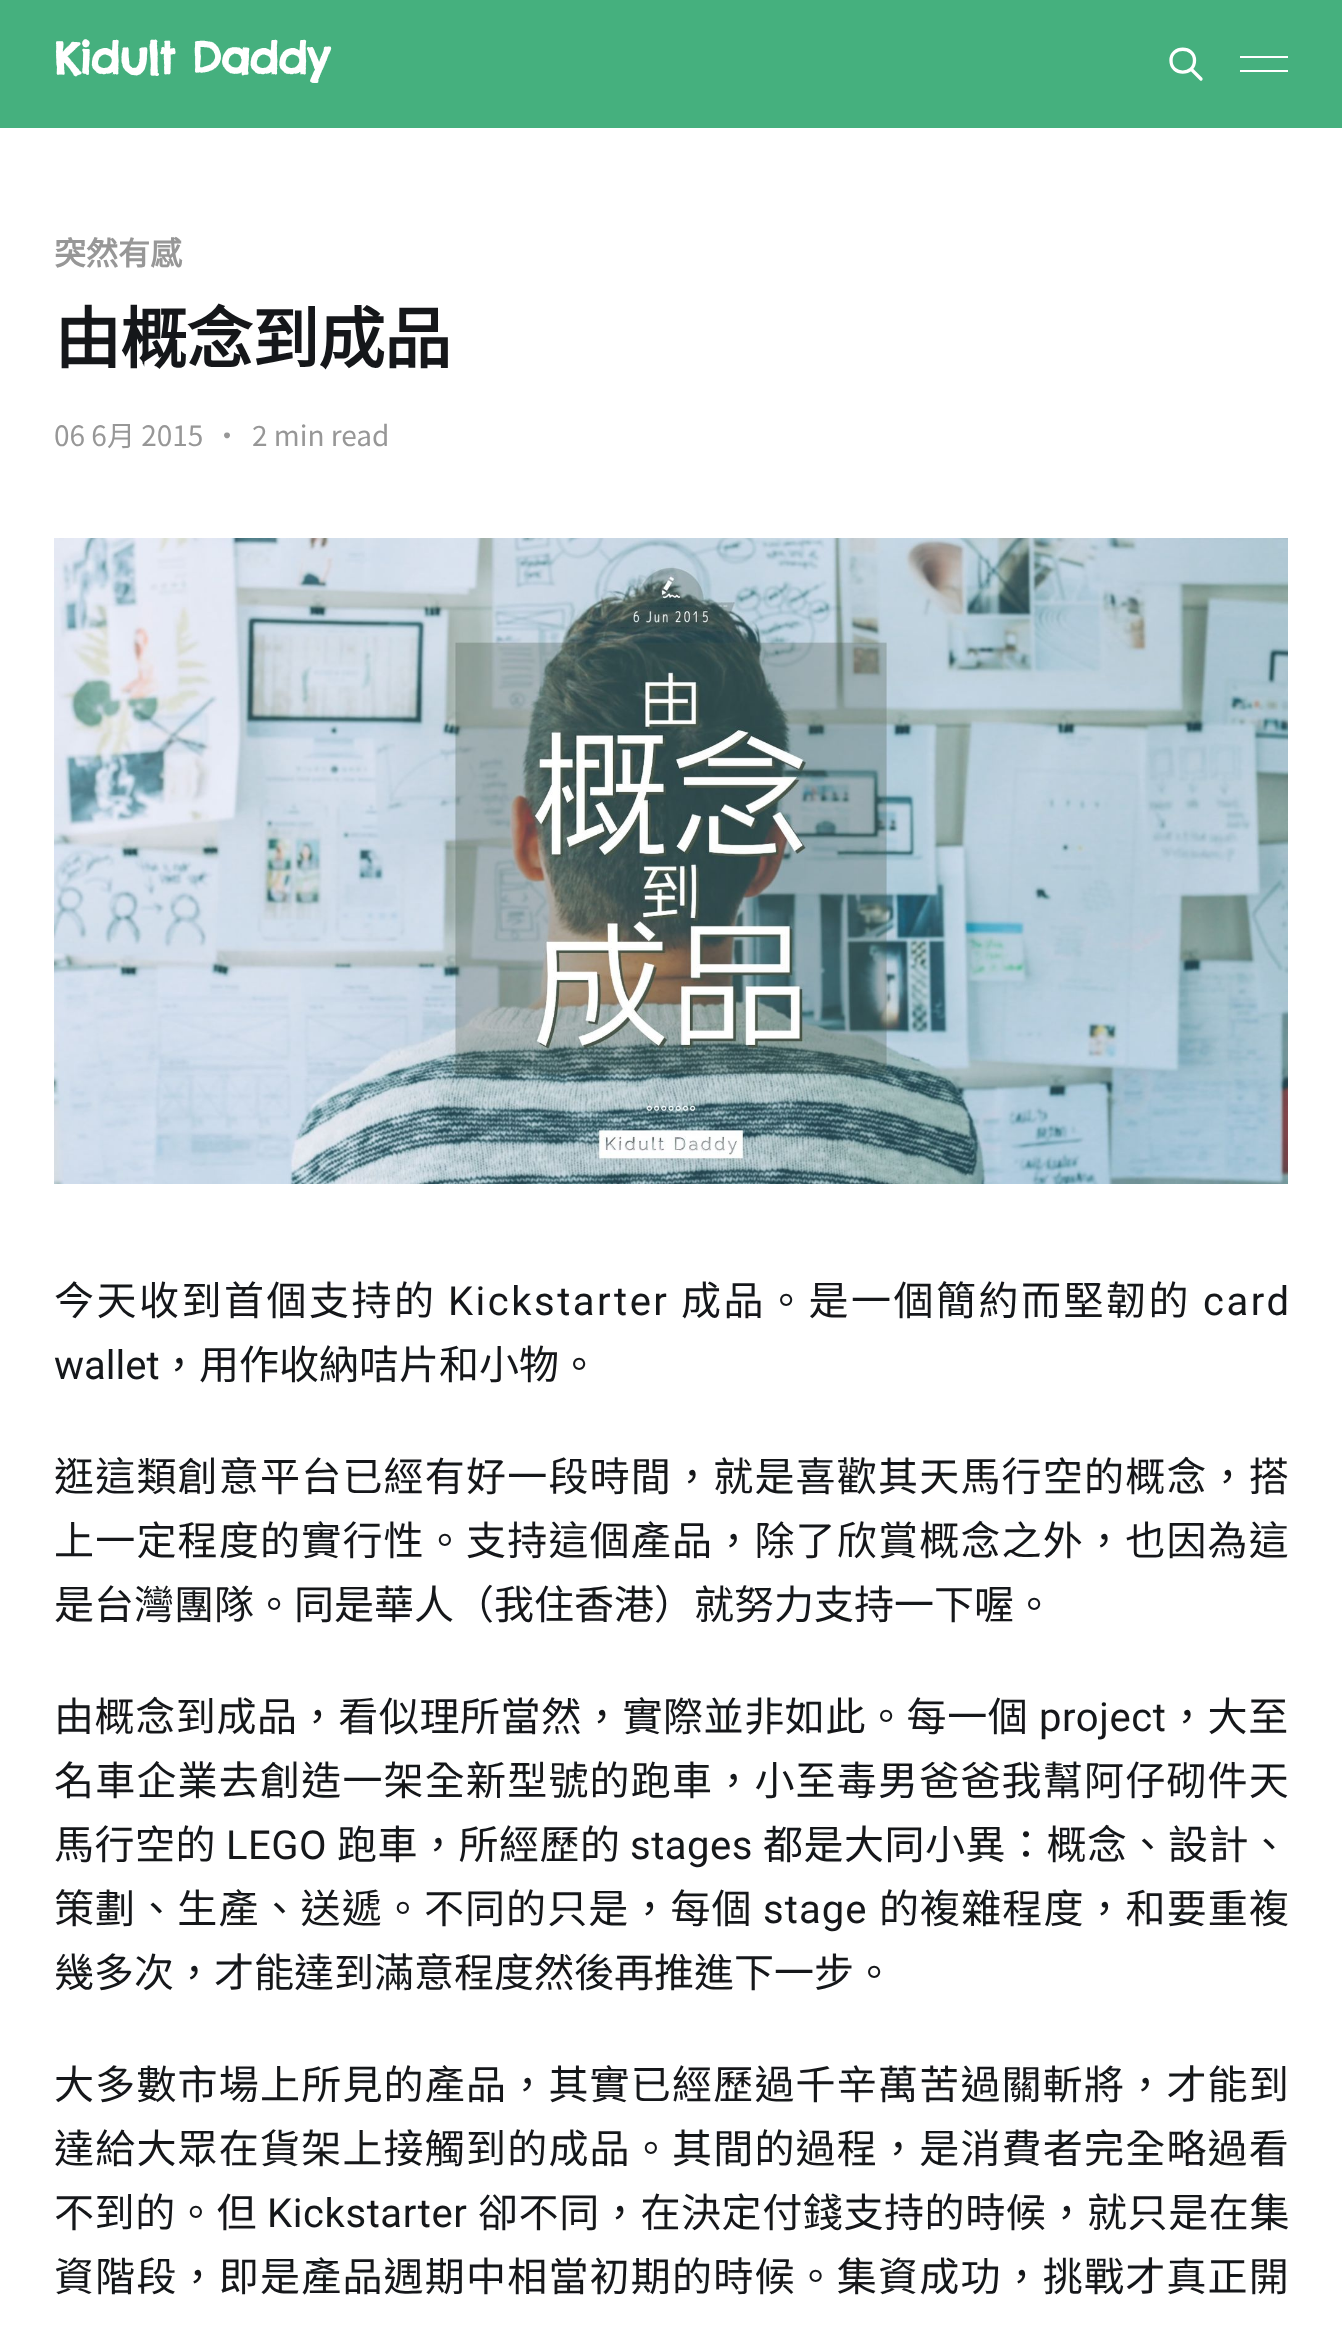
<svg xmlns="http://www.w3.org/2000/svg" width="1342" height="2327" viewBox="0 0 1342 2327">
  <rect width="100%" height="100%" fill="#fff"/>
  <path d="M0 0h1342v128H0z" fill="#45b07e"/>
  <path d="M1201 79L1191 69M1194.5 60.5C1194.5 76 1171 76 1171 60.5C1171 45.5 1194.5 45.5 1194.5 60.5Z" fill="none" stroke="#fff" stroke-width="3.3" stroke-linecap="round" stroke-linejoin="round"/>
  <path d="M1240 56h48v2H1240z" fill="#fff"/>
  <path d="M1240 70h48v2H1240z" fill="#fff"/>
  <image x="54" y="538" width="1234" height="646" href="img/1.png"/>
  <text x="54" y="74" font-family="Chelsea Market" font-size="44" font-weight="bold" letter-spacing="-0.9" fill="#fff">Kidult Daddy</text>
  <text x="54" y="265" font-family="Noto Sans HK" font-size="32" font-weight="bold" fill="#979797">突然有感</text>
  <text x="54" y="363" font-family="Noto Sans HK" font-size="67" font-weight="bold" letter-spacing="-1" fill="#15171a">由概念到成品</text>
  <g font-family="Noto Sans HK" font-size="28" font-weight="100" fill="#979797">
    <text x="54" y="446">06 6月 2015</text>
    <text x="213" y="446">•</text>
    <text x="252" y="446">2 min read</text>
  </g>
  <text x="54" y="1315" font-family="Noto Sans CJK HK" font-size="40" letter-spacing="2.5" fill="#15171a">今天收到首個支持的</text>
  <text x="448" y="1315" font-family="Roboto" font-size="40" letter-spacing="2.5" fill="#15171a">Kickstarter</text>
  <text x="681" y="1315" font-family="Noto Sans CJK HK" font-size="40" letter-spacing="2.5" fill="#15171a">成品。是一個簡約而堅韌的</text>
  <text x="1203" y="1315" font-family="Roboto" font-size="40" letter-spacing="2.5" fill="#15171a">card</text>
  <text x="54" y="1379" font-family="Roboto" font-size="40" fill="#15171a">wallet</text>
  <text x="159" y="1379" font-family="Noto Sans CJK HK" font-size="40" fill="#15171a">，用作收納咭片和小物。</text>
  <g font-family="Noto Sans CJK HK" font-size="40" letter-spacing="1.2" fill="#15171a">
    <text x="54" y="1491">逛這類創意平台已經有好一段時間，就是喜歡其天馬行空的概念，搭</text>
    <text x="54" y="1555">上一定程度的實行性。支持這個產品，除了欣賞概念之外，也因為這</text>
  </g>
  <text x="54" y="1619" font-family="Noto Sans CJK HK" font-size="40" fill="#15171a">是台灣團隊。同是華人（我住香港）就努力支持一下喔。</text>
  <text x="54" y="1731" font-family="Noto Sans CJK HK" font-size="40" letter-spacing="0.6" fill="#15171a">由概念到成品，看似理所當然，實際並非如此。每一個</text>
  <text x="1039" y="1731" font-family="Roboto" font-size="40" letter-spacing="0.6" fill="#15171a">project</text>
  <text x="1167" y="1731" font-family="Noto Sans CJK HK" font-size="40" letter-spacing="0.6" fill="#15171a">，大至</text>
  <text x="54" y="1795" font-family="Noto Sans CJK HK" font-size="40" letter-spacing="1.2" fill="#15171a">名車企業去創造一架全新型號的跑車，小至毒男爸爸我幫阿仔砌件天</text>
  <text x="54" y="1859" font-family="Noto Sans CJK HK" font-size="40" letter-spacing="0.5" fill="#15171a">馬行空的</text>
  <text x="226" y="1859" font-family="Roboto" font-size="40" letter-spacing="0.5" fill="#15171a">LEGO</text>
  <text x="337" y="1859" font-family="Noto Sans CJK HK" font-size="40" letter-spacing="0.5" fill="#15171a">跑車，所經歷的</text>
  <text x="630" y="1859" font-family="Roboto" font-size="40" letter-spacing="0.5" fill="#15171a">stages</text>
  <text x="763" y="1859" font-family="Noto Sans CJK HK" font-size="40" letter-spacing="0.5" fill="#15171a">都是大同小異：概念、設計、</text>
  <text x="54" y="1923" font-family="Noto Sans CJK HK" font-size="40" letter-spacing="1.1" fill="#15171a">策劃、生產、送遞。不同的只是，每個</text>
  <text x="763" y="1923" font-family="Roboto" font-size="40" letter-spacing="1.1" fill="#15171a">stage</text>
  <text x="879" y="1923" font-family="Noto Sans CJK HK" font-size="40" letter-spacing="1.1" fill="#15171a">的複雜程度，和要重複</text>
  <text x="54" y="1987" font-family="Noto Sans CJK HK" font-size="40" fill="#15171a">幾多次，才能達到滿意程度然後再推進下一步。</text>
  <g font-family="Noto Sans CJK HK" font-size="40" letter-spacing="1.2" fill="#15171a">
    <text x="54" y="2099">大多數市場上所見的產品，其實已經歷過千辛萬苦過關斬將，才能到</text>
    <text x="54" y="2163">達給大眾在貨架上接觸到的成品。其間的過程，是消費者完全略過看</text>
  </g>
  <text x="54" y="2227" font-family="Noto Sans CJK HK" font-size="40" letter-spacing="0.6" fill="#15171a">不到的。但</text>
  <text x="267" y="2227" font-family="Roboto" font-size="40" letter-spacing="0.6" fill="#15171a">Kickstarter</text>
  <text x="478" y="2227" font-family="Noto Sans CJK HK" font-size="40" letter-spacing="0.6" fill="#15171a">卻不同，在決定付錢支持的時候，就只是在集</text>
  <text x="54" y="2291" font-family="Noto Sans CJK HK" font-size="40" letter-spacing="1.2" fill="#15171a">資階段，即是產品週期中相當初期的時候。集資成功，挑戰才真正開</text>
</svg>
